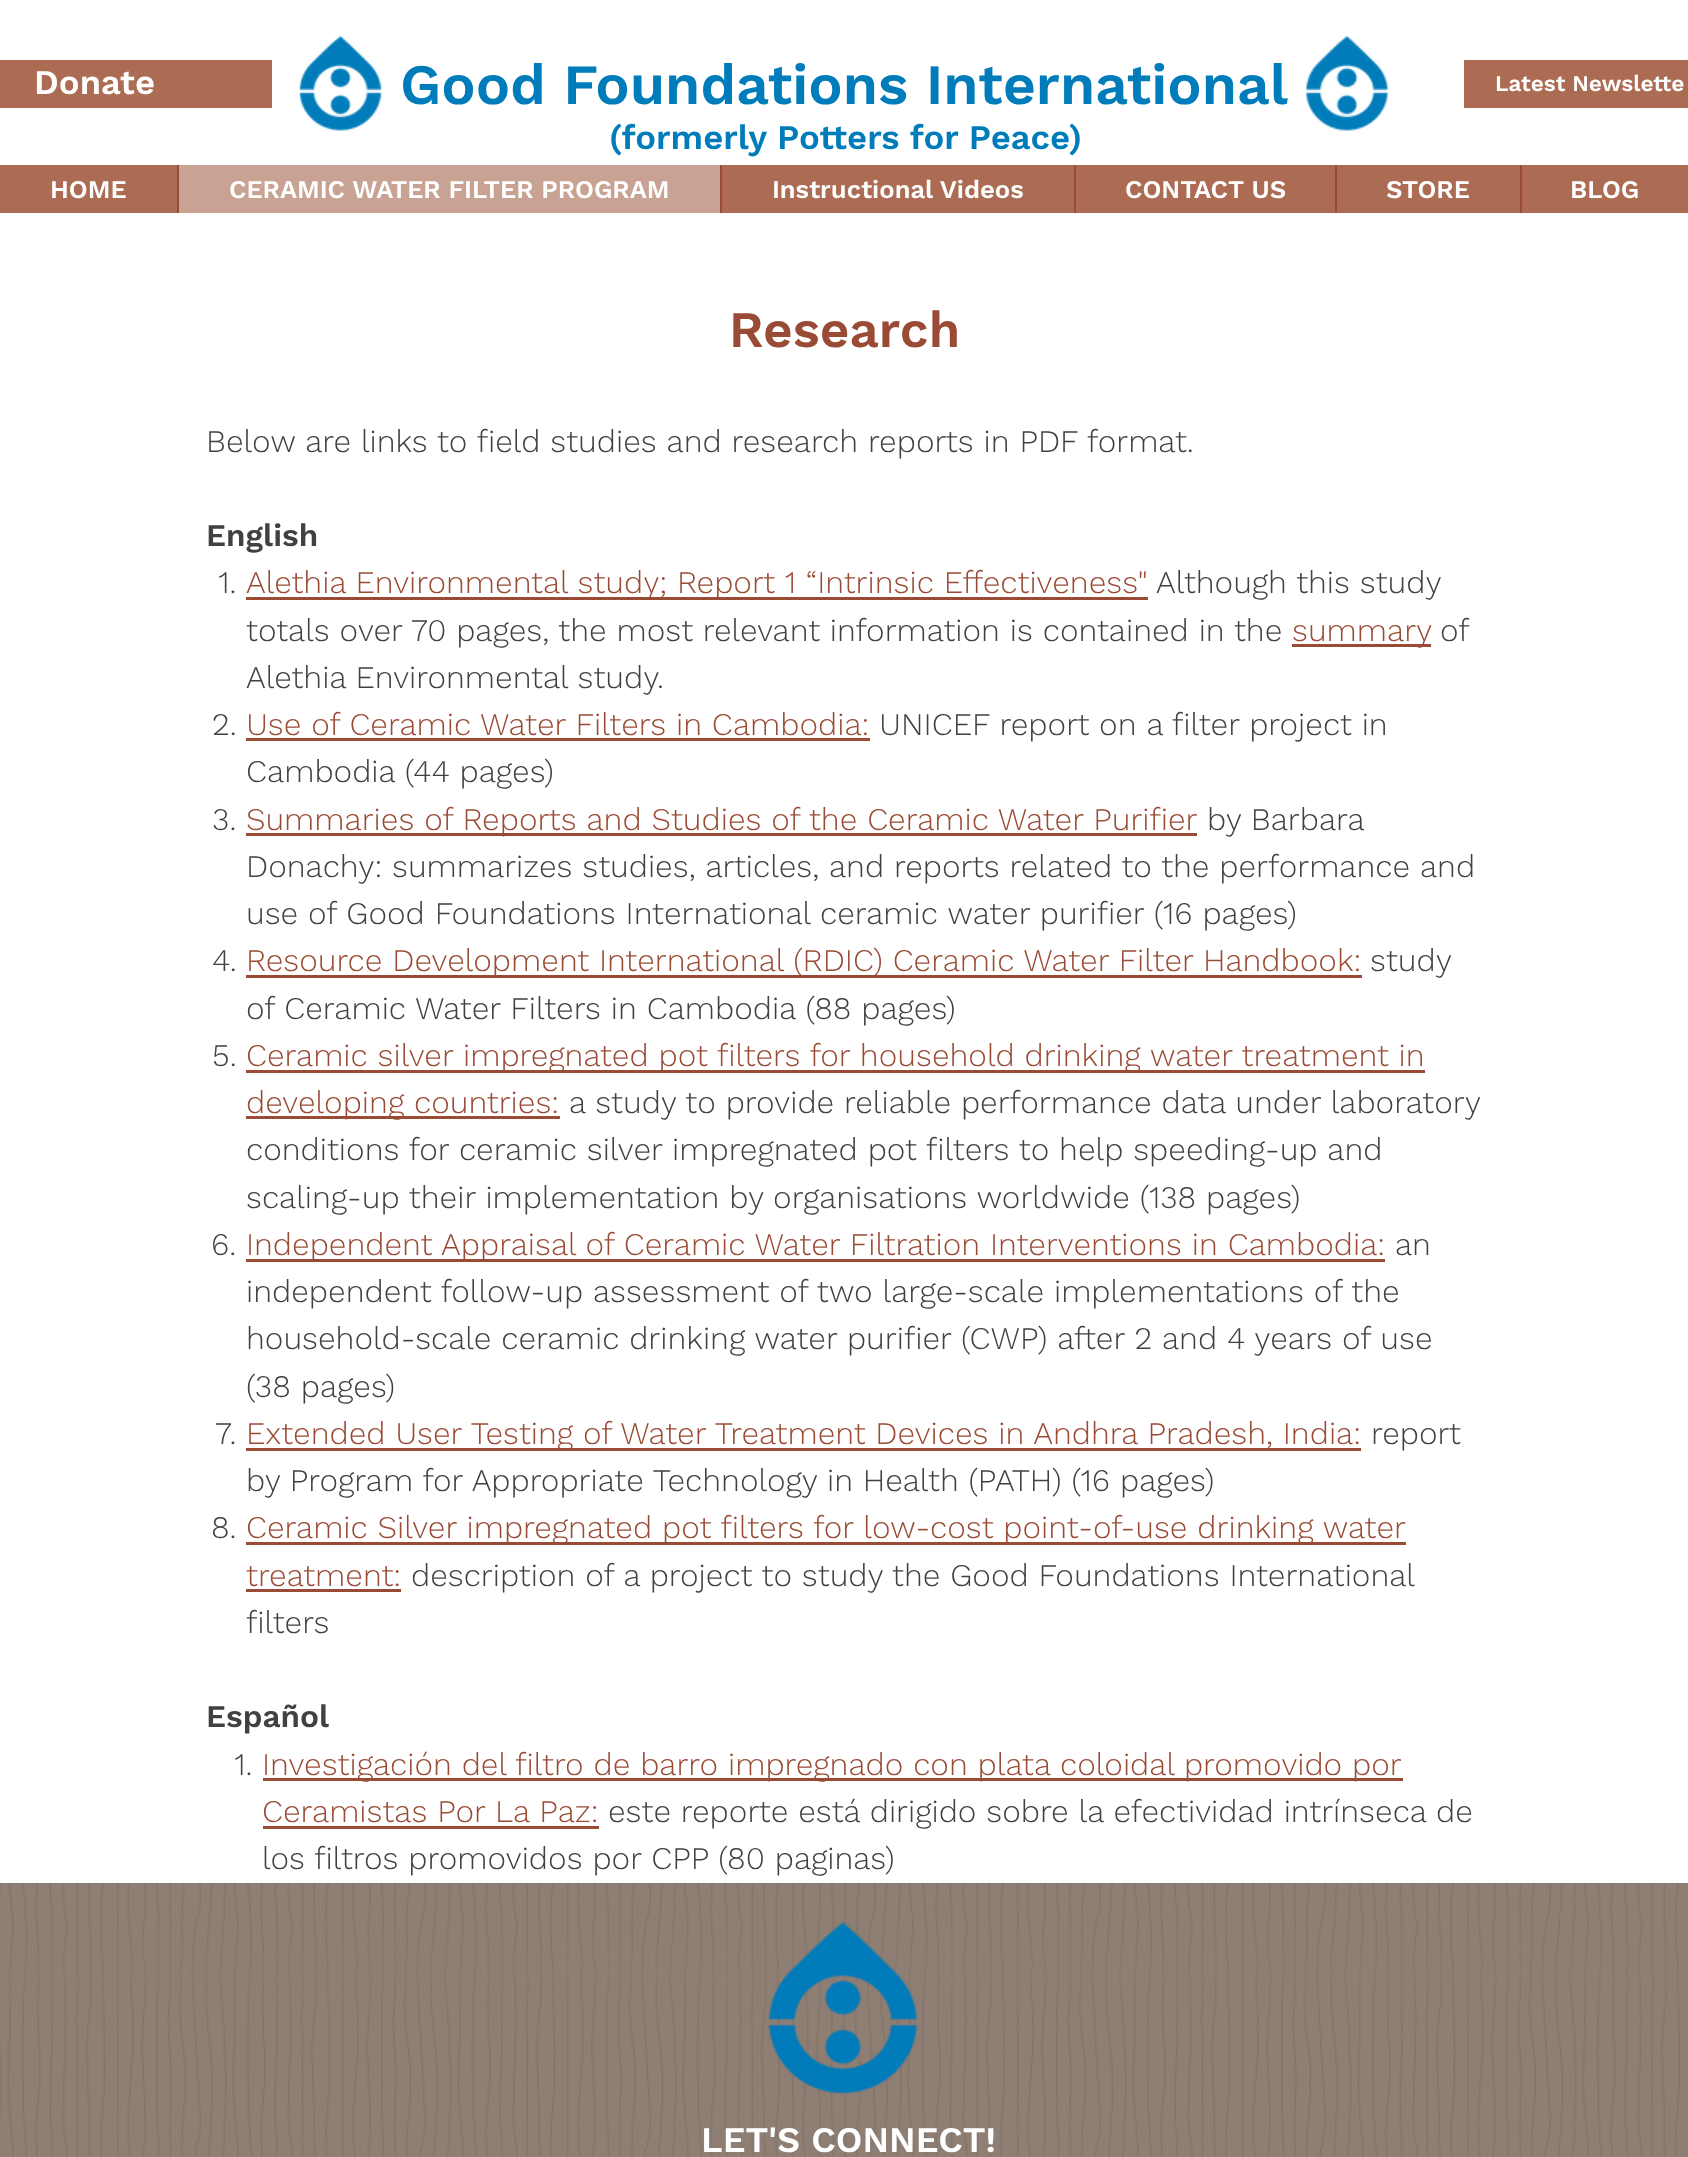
<svg xmlns="http://www.w3.org/2000/svg" width="1688" height="2157" viewBox="0 0 1688 2157">
  <rect width="100%" height="100%" fill="#fff"/>
  <image x="298" y="35" width="84" height="96" href="img/1.png"/>
  <image x="1305" y="35" width="84" height="96" href="img/2.png"/>
  <path d="M0 165h1688v48H0z" fill="#ac6c53"/>
  <path d="M179 165h541v48H179z" fill="#c8a394"/>
  <path d="M177 165h2v48H177z" fill="#994b35"/>
  <path d="M720 165h2v48H720z" fill="#994b35"/>
  <path d="M1074 165h2v48H1074z" fill="#994b35"/>
  <path d="M1335 165h2v48H1335z" fill="#994b35"/>
  <path d="M1520 165h2v48H1520z" fill="#994b35"/>
  <path d="M0 60h272v48H0z" fill="#ac6c53"/>
  <path d="M1464 60h224v48H1464z" fill="#ac6c53"/>
  <path d="M246 597h902v3H246z" fill="#994b35"/>
  <path d="M1292 644h139v3H1292z" fill="#994b35"/>
  <path d="M246 738h624v3H246z" fill="#994b35"/>
  <path d="M246 833h951v3H246z" fill="#994b35"/>
  <path d="M246 975h1116v3H246z" fill="#994b35"/>
  <path d="M246 1070h1179v3H246z" fill="#994b35"/>
  <path d="M246 1116h314v3H246z" fill="#994b35"/>
  <path d="M246 1259h1139v3H246z" fill="#994b35"/>
  <path d="M246 1448h1115v3H246z" fill="#994b35"/>
  <path d="M246 1542h1160v3H246z" fill="#994b35"/>
  <path d="M246 1589h155v3H246z" fill="#994b35"/>
  <path d="M263 1778h1140v3H263z" fill="#994b35"/>
  <path d="M263 1826h336v3H263z" fill="#994b35"/>
  <path d="M0 1883h1688v274H0z" fill="#8e7e73"/>
  <image x="0" y="1883" width="1680" height="274" href="img/3.png"/>
  <image x="768" y="1922" width="150" height="173" href="img/4.png"/>
  <text x="400" y="104" font-family="Work Sans" font-size="57" font-weight="600" fill="#007cba">Good Foundations International</text>
  <text x="609" y="149" font-family="Work Sans" font-size="34.5" font-weight="600" fill="#007cba">(formerly Potters for Peace)</text>
  <g font-family="Work Sans" font-size="25.5" font-weight="600" fill="#fff">
    <text x="50" y="198">HOME</text>
    <text x="229" y="198">CERAMIC WATER FILTER PROGRAM</text>
    <text x="772" y="198">Instructional Videos</text>
    <text x="1125" y="198">CONTACT US</text>
    <text x="1386" y="198">STORE</text>
    <text x="1570" y="198">BLOG</text>
  </g>
  <text x="34" y="94" font-family="Work Sans" font-size="34.5" font-weight="600" fill="#fff">Donate</text>
  <text x="1495" y="91" font-family="Work Sans" font-size="22.5" font-weight="600" fill="#fff">Latest Newslette</text>
  <text x="729" y="347" font-family="Work Sans" font-size="51" font-weight="600" fill="#994b35">Research</text>
  <text x="206" y="452" font-family="Work Sans" font-size="31.5" font-weight="300" fill="#414141">Below are links to field studies and research reports in PDF format.</text>
  <text x="206" y="546" font-family="Work Sans" font-size="31.5" font-weight="600" fill="#414141">English</text>
  <text x="218" y="593" font-family="Work Sans" font-size="31.5" font-weight="300" fill="#414141">1.</text>
  <text x="246" y="593" font-family="Work Sans" font-size="31.5" font-weight="300" fill="#994b35">Alethia Environmental study; Report 1 “Intrinsic Effectiveness"</text>
  <g font-family="Work Sans" font-size="31.5" font-weight="300" fill="#414141">
    <text x="1156" y="593">Although this study</text>
    <text x="246" y="641">totals over 70 pages, the most relevant information is contained in the</text>
  </g>
  <text x="1292" y="641" font-family="Work Sans" font-size="31.5" font-weight="300" fill="#994b35">summary</text>
  <g font-family="Work Sans" font-size="31.5" font-weight="300" fill="#414141">
    <text x="1440" y="641">of</text>
    <text x="246" y="688">Alethia Environmental study.</text>
    <text x="212" y="735">2.</text>
  </g>
  <text x="246" y="735" font-family="Work Sans" font-size="31.5" font-weight="300" fill="#994b35">Use of Ceramic Water Filters in Cambodia:</text>
  <g font-family="Work Sans" font-size="31.5" font-weight="300" fill="#414141">
    <text x="879" y="735">UNICEF report on a filter project in</text>
    <text x="246" y="782">Cambodia (44 pages)</text>
    <text x="212" y="830">3.</text>
  </g>
  <text x="246" y="830" font-family="Work Sans" font-size="31.5" font-weight="300" fill="#994b35">Summaries of Reports and Studies of the Ceramic Water Purifier</text>
  <g font-family="Work Sans" font-size="31.5" font-weight="300" fill="#414141">
    <text x="1207" y="830">by Barbara</text>
    <text x="246" y="877">Donachy: summarizes studies, articles, and reports related to the performance and</text>
    <text x="246" y="924">use of Good Foundations International ceramic water purifier (16 pages)</text>
    <text x="212" y="971">4.</text>
  </g>
  <text x="246" y="971" font-family="Work Sans" font-size="31.5" font-weight="300" fill="#994b35">Resource Development International (RDIC) Ceramic Water Filter Handbook:</text>
  <g font-family="Work Sans" font-size="31.5" font-weight="300" fill="#414141">
    <text x="1370" y="971">study</text>
    <text x="246" y="1019">of Ceramic Water Filters in Cambodia (88 pages)</text>
    <text x="212" y="1066">5.</text>
  </g>
  <g font-family="Work Sans" font-size="31.5" font-weight="300" fill="#994b35">
    <text x="246" y="1066">Ceramic silver impregnated pot filters for household drinking water treatment in</text>
    <text x="246" y="1113">developing countries:</text>
  </g>
  <g font-family="Work Sans" font-size="31.5" font-weight="300" fill="#414141">
    <text x="569" y="1113">a study to provide reliable performance data under laboratory</text>
    <text x="246" y="1160">conditions for ceramic silver impregnated pot filters to help speeding-up and</text>
    <text x="246" y="1208">scaling-up their implementation by organisations worldwide (138 pages)</text>
    <text x="211" y="1255">6.</text>
  </g>
  <text x="246" y="1255" font-family="Work Sans" font-size="31.5" font-weight="300" fill="#994b35">Independent Appraisal of Ceramic Water Filtration Interventions in Cambodia:</text>
  <g font-family="Work Sans" font-size="31.5" font-weight="300" fill="#414141">
    <text x="1395" y="1255">an</text>
    <text x="246" y="1302">independent follow-up assessment of two large-scale implementations of the</text>
    <text x="246" y="1349">household-scale ceramic drinking water purifier (CWP) after 2 and 4 years of use</text>
    <text x="246" y="1397">(38 pages)</text>
    <text x="215" y="1444">7.</text>
  </g>
  <text x="246" y="1444" font-family="Work Sans" font-size="31.5" font-weight="300" fill="#994b35">Extended User Testing of Water Treatment Devices in Andhra Pradesh, India:</text>
  <g font-family="Work Sans" font-size="31.5" font-weight="300" fill="#414141">
    <text x="1371" y="1444">report</text>
    <text x="246" y="1491">by Program for Appropriate Technology in Health (PATH) (16 pages)</text>
    <text x="211" y="1538">8.</text>
  </g>
  <g font-family="Work Sans" font-size="31.5" font-weight="300" fill="#994b35">
    <text x="246" y="1538">Ceramic Silver impregnated pot filters for low-cost point-of-use drinking water</text>
    <text x="246" y="1586">treatment:</text>
  </g>
  <g font-family="Work Sans" font-size="31.5" font-weight="300" fill="#414141">
    <text x="411" y="1586">description of a project to study the Good Foundations International</text>
    <text x="246" y="1633">filters</text>
  </g>
  <text x="206" y="1727" font-family="Work Sans" font-size="31.5" font-weight="600" fill="#414141">Español</text>
  <text x="234" y="1775" font-family="Work Sans" font-size="31.5" font-weight="300" fill="#414141">1.</text>
  <g font-family="Work Sans" font-size="31.5" font-weight="300" fill="#994b35">
    <text x="262" y="1775">Investigación del filtro de barro impregnado con plata coloidal promovido por</text>
    <text x="262" y="1822">Ceramistas Por La Paz:</text>
  </g>
  <g font-family="Work Sans" font-size="31.5" font-weight="300" fill="#414141">
    <text x="608" y="1822">este reporte está dirigido sobre la efectividad intrínseca de</text>
    <text x="262" y="1869">los filtros promovidos por CPP (80 paginas)</text>
  </g>
  <text x="701" y="2152" font-family="Work Sans" font-size="36" font-weight="600" fill="#fff">LET'S CONNECT!</text>
</svg>
